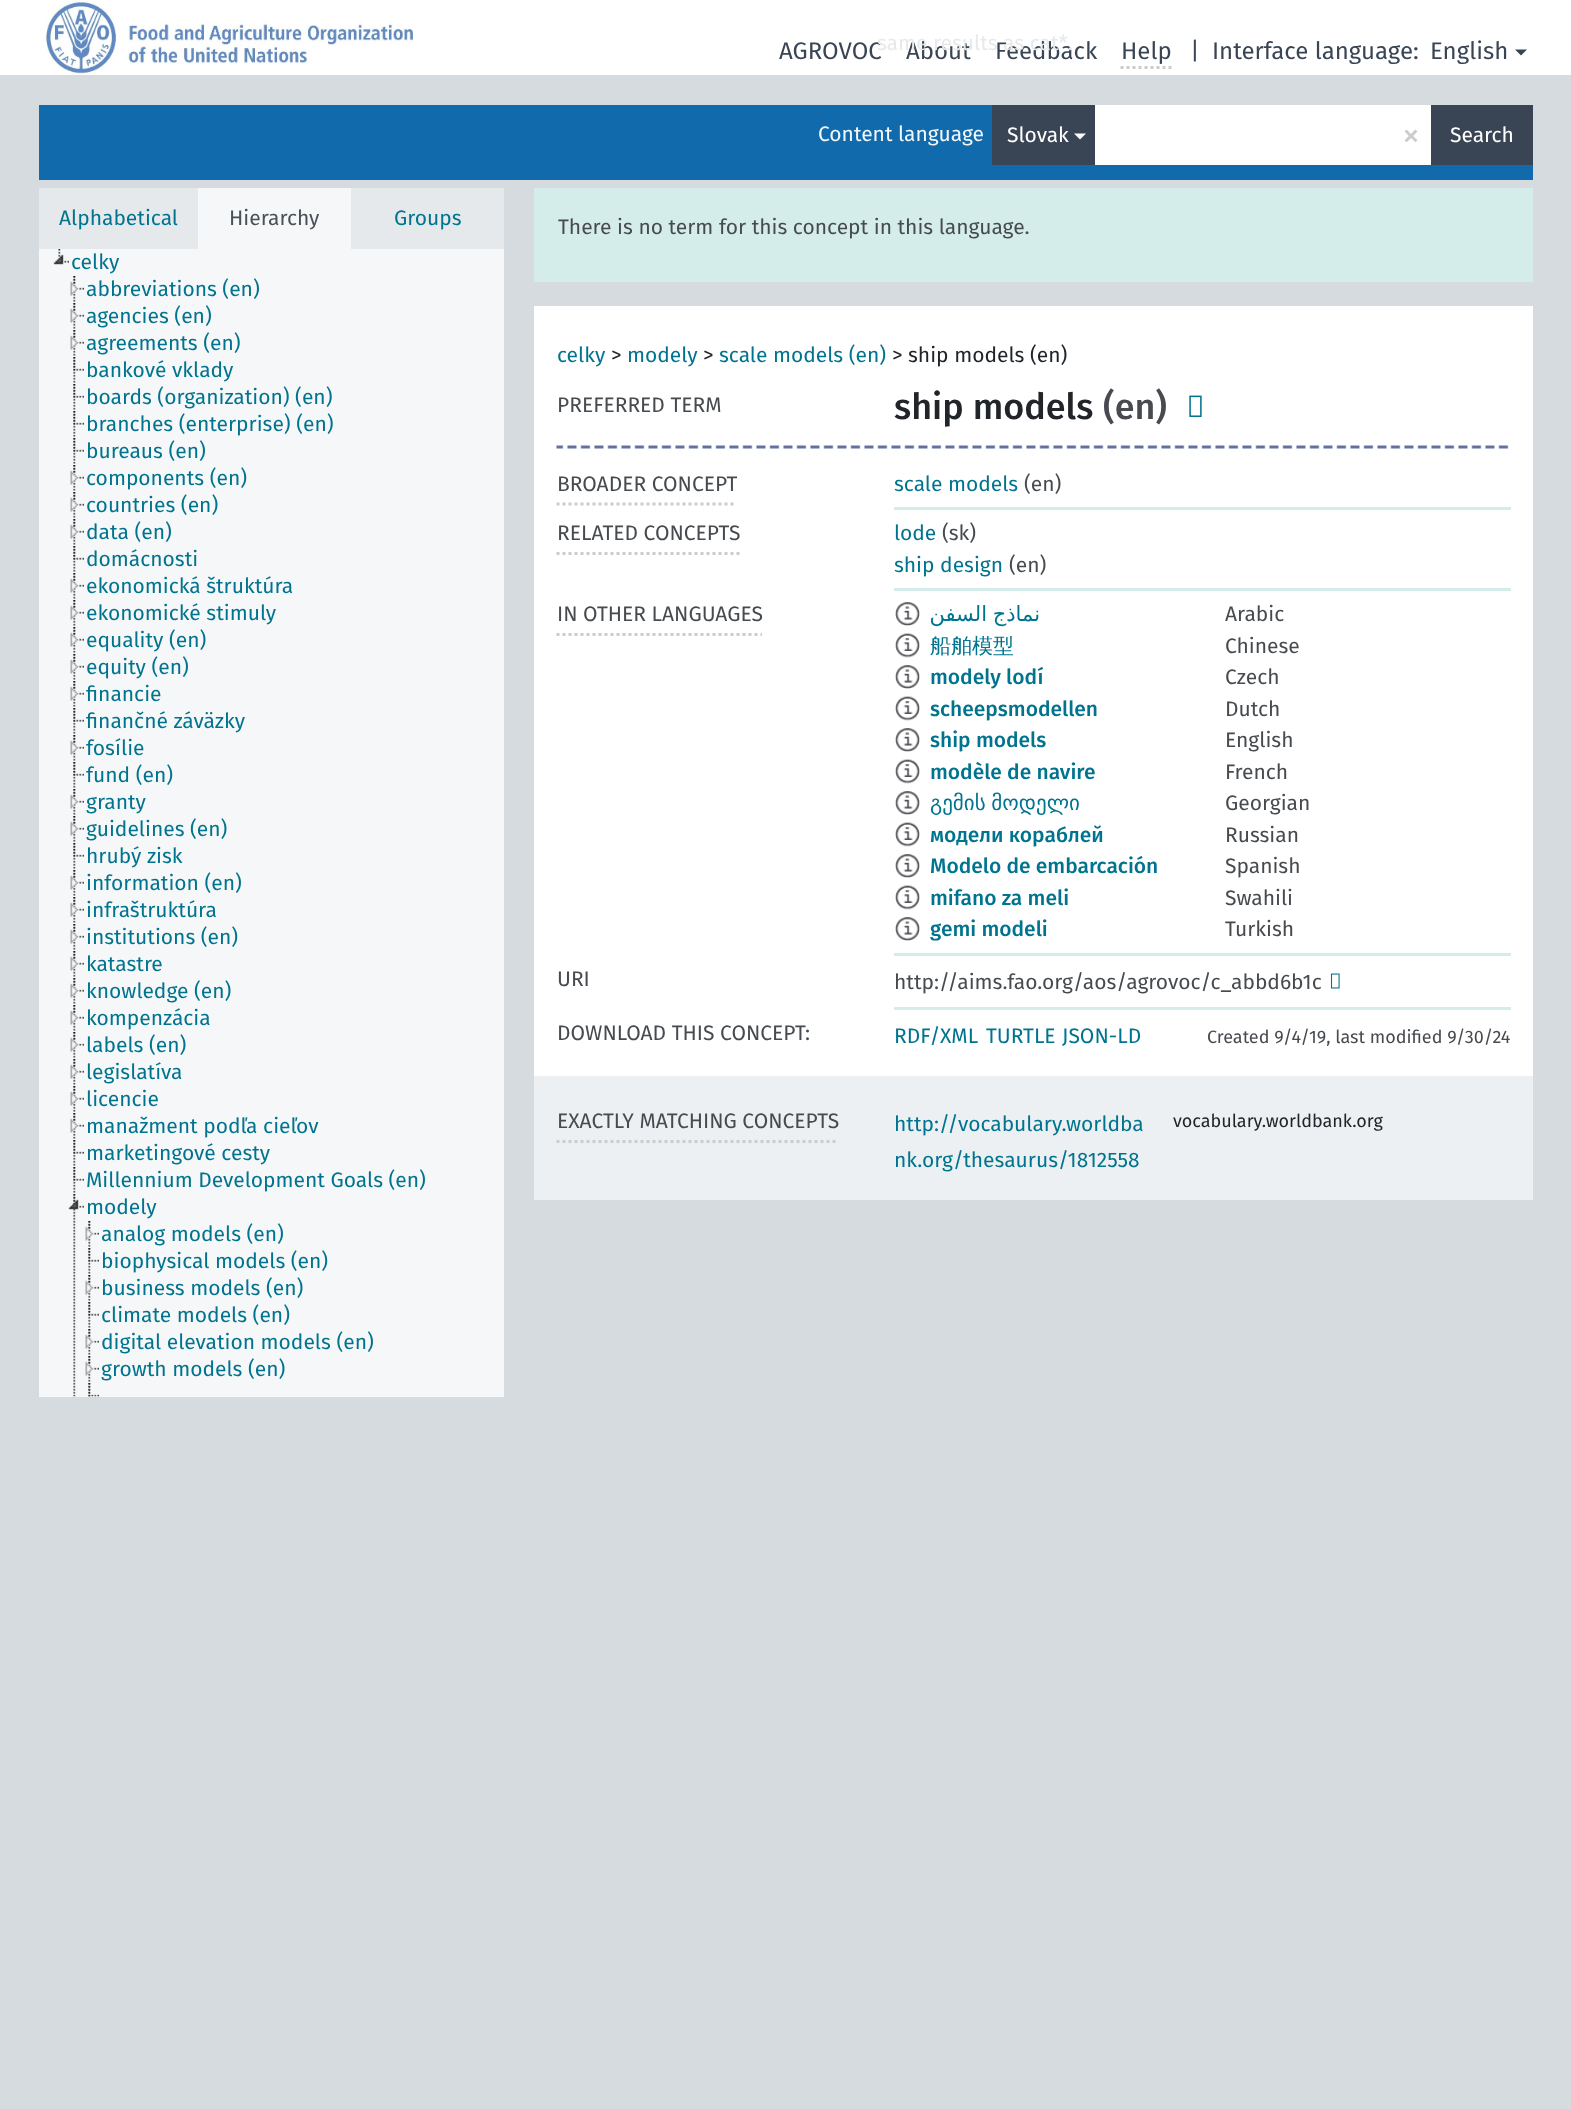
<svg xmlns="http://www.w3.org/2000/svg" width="1571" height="2109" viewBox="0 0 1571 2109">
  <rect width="100%" height="100%" fill="#d5dbde"/>
  <path d="M0 0h1571v75H0z" fill="#fff"/>
  <image x="45" y="1" width="369" height="74" href="img/1.png"/>
  <path d="M1120.5 67.5H1171.5" fill="none" stroke="#ccc" stroke-width="3" stroke-dasharray="3 3"/>
  <path d="M1515 49.5H1527L1521 55.5Z" fill="#394554"/>
  <path d="M39 105h1494v75H39z" fill="#116aab"/>
  <path d="M992 105h103v60H992z" fill="#394554"/>
  <path d="M1074 133.5H1086L1080 139.5Z" fill="#fff"/>
  <path d="M1095 105h336v60H1095z" fill="#fff"/>
  <path d="M1431 105h102v60H1431z" fill="#394554"/>
  <path d="M39 188h159v61H39z" fill="#e6e9eb"/>
  <path d="M198 188h153v61H198z" fill="#f6f7f8"/>
  <path d="M351 188h153v61H351z" fill="#e6e9eb"/>
  <path d="M39 249h465v1148H39z" fill="#f6f7f8"/>
  <image x="53" y="249" width="16" height="16" href="img/2.png"/>
  <image x="73" y="276" width="3" height="26" href="img/3.png"/>
  <image x="70" y="276" width="14" height="20" href="img/4.png"/>
  <image x="73" y="303" width="3" height="26" href="img/3.png"/>
  <image x="70" y="303" width="14" height="20" href="img/4.png"/>
  <image x="73" y="330" width="3" height="26" href="img/3.png"/>
  <image x="70" y="330" width="14" height="20" href="img/4.png"/>
  <image x="73" y="357" width="3" height="26" href="img/3.png"/>
  <image x="73" y="357" width="11" height="14" href="img/5.png"/>
  <image x="73" y="384" width="3" height="26" href="img/3.png"/>
  <image x="73" y="384" width="11" height="14" href="img/5.png"/>
  <image x="73" y="411" width="3" height="26" href="img/3.png"/>
  <image x="73" y="411" width="11" height="14" href="img/5.png"/>
  <image x="73" y="438" width="3" height="26" href="img/3.png"/>
  <image x="73" y="438" width="11" height="14" href="img/5.png"/>
  <image x="73" y="465" width="3" height="26" href="img/3.png"/>
  <image x="70" y="465" width="14" height="20" href="img/4.png"/>
  <image x="73" y="492" width="3" height="26" href="img/3.png"/>
  <image x="70" y="492" width="14" height="20" href="img/4.png"/>
  <image x="73" y="519" width="3" height="26" href="img/3.png"/>
  <image x="70" y="519" width="14" height="20" href="img/4.png"/>
  <image x="73" y="546" width="3" height="26" href="img/3.png"/>
  <image x="73" y="546" width="11" height="14" href="img/5.png"/>
  <image x="73" y="573" width="3" height="26" href="img/3.png"/>
  <image x="70" y="573" width="14" height="20" href="img/4.png"/>
  <image x="73" y="600" width="3" height="26" href="img/3.png"/>
  <image x="70" y="600" width="14" height="20" href="img/4.png"/>
  <image x="73" y="627" width="3" height="26" href="img/3.png"/>
  <image x="70" y="627" width="14" height="20" href="img/4.png"/>
  <image x="73" y="654" width="3" height="26" href="img/3.png"/>
  <image x="70" y="654" width="14" height="20" href="img/4.png"/>
  <image x="73" y="681" width="3" height="26" href="img/3.png"/>
  <image x="70" y="681" width="14" height="20" href="img/4.png"/>
  <image x="73" y="708" width="3" height="26" href="img/3.png"/>
  <image x="73" y="708" width="11" height="14" href="img/5.png"/>
  <image x="73" y="735" width="3" height="26" href="img/3.png"/>
  <image x="70" y="735" width="14" height="20" href="img/4.png"/>
  <image x="73" y="762" width="3" height="26" href="img/3.png"/>
  <image x="73" y="762" width="11" height="14" href="img/5.png"/>
  <image x="73" y="789" width="3" height="26" href="img/3.png"/>
  <image x="70" y="789" width="14" height="20" href="img/4.png"/>
  <image x="73" y="816" width="3" height="26" href="img/3.png"/>
  <image x="70" y="816" width="14" height="20" href="img/4.png"/>
  <image x="73" y="843" width="3" height="26" href="img/3.png"/>
  <image x="73" y="843" width="11" height="14" href="img/5.png"/>
  <image x="73" y="870" width="3" height="26" href="img/3.png"/>
  <image x="70" y="870" width="14" height="20" href="img/4.png"/>
  <image x="73" y="897" width="3" height="26" href="img/3.png"/>
  <image x="70" y="897" width="14" height="20" href="img/4.png"/>
  <image x="73" y="924" width="3" height="26" href="img/3.png"/>
  <image x="70" y="924" width="14" height="20" href="img/4.png"/>
  <image x="73" y="951" width="3" height="26" href="img/3.png"/>
  <image x="70" y="951" width="14" height="20" href="img/4.png"/>
  <image x="73" y="978" width="3" height="26" href="img/3.png"/>
  <image x="70" y="978" width="14" height="20" href="img/4.png"/>
  <image x="73" y="1005" width="3" height="26" href="img/3.png"/>
  <image x="70" y="1005" width="14" height="20" href="img/4.png"/>
  <image x="73" y="1032" width="3" height="26" href="img/3.png"/>
  <image x="70" y="1032" width="14" height="20" href="img/4.png"/>
  <image x="73" y="1059" width="3" height="26" href="img/3.png"/>
  <image x="70" y="1059" width="14" height="20" href="img/4.png"/>
  <image x="73" y="1086" width="3" height="26" href="img/3.png"/>
  <image x="70" y="1086" width="14" height="20" href="img/4.png"/>
  <image x="73" y="1113" width="3" height="26" href="img/3.png"/>
  <image x="70" y="1113" width="14" height="20" href="img/4.png"/>
  <image x="73" y="1140" width="3" height="26" href="img/3.png"/>
  <image x="73" y="1140" width="11" height="14" href="img/5.png"/>
  <image x="73" y="1167" width="3" height="26" href="img/3.png"/>
  <image x="73" y="1167" width="11" height="14" href="img/5.png"/>
  <image x="73" y="1194" width="3" height="203" href="img/6.png"/>
  <image x="68" y="1194" width="16" height="16" href="img/7.png"/>
  <image x="88" y="1221" width="3" height="26" href="img/3.png"/>
  <image x="85" y="1221" width="14" height="20" href="img/4.png"/>
  <image x="88" y="1248" width="3" height="26" href="img/3.png"/>
  <image x="88" y="1248" width="11" height="14" href="img/5.png"/>
  <image x="88" y="1275" width="3" height="26" href="img/3.png"/>
  <image x="85" y="1275" width="14" height="20" href="img/4.png"/>
  <image x="88" y="1302" width="3" height="26" href="img/3.png"/>
  <image x="88" y="1302" width="11" height="14" href="img/5.png"/>
  <image x="88" y="1329" width="3" height="26" href="img/3.png"/>
  <image x="85" y="1329" width="14" height="20" href="img/4.png"/>
  <image x="88" y="1356" width="3" height="26" href="img/3.png"/>
  <image x="85" y="1356" width="14" height="20" href="img/4.png"/>
  <image x="88" y="1383" width="3" height="14" href="img/8.png"/>
  <image x="88" y="1383" width="11" height="14" href="img/9.png"/>
  <path d="M534 188h999v94H534z" fill="#d4edeb"/>
  <path d="M534 306h999v770H534z" fill="#fff"/>
  <image x="1189" y="395" width="13" height="22" href="img/10.png"/>
  <image x="556" y="445" width="953" height="4" href="img/11.png"/>
  <path d="M556.5 504H736.5" fill="none" stroke="#ccc" stroke-width="3" stroke-dasharray="3 3"/>
  <path d="M894 507h617v3H894z" fill="#d4edeb"/>
  <path d="M556.5 553.5H739.5" fill="none" stroke="#ccc" stroke-width="3" stroke-dasharray="3 3"/>
  <path d="M894 588h617v3H894z" fill="#d4edeb"/>
  <path d="M556.5 634.5H762" fill="none" stroke="#ccc" stroke-width="3" stroke-dasharray="3 3"/>
  <path d="M894 953h617v3H894z" fill="#d4edeb"/>
  <image x="895" y="602" width="25" height="24" href="img/12.png"/>
  <image x="895" y="633" width="25" height="25" href="img/13.png"/>
  <image x="895" y="665" width="25" height="24" href="img/12.png"/>
  <image x="895" y="696" width="25" height="25" href="img/13.png"/>
  <image x="895" y="728" width="25" height="24" href="img/12.png"/>
  <image x="895" y="759" width="25" height="25" href="img/13.png"/>
  <image x="895" y="791" width="25" height="24" href="img/12.png"/>
  <image x="895" y="822" width="25" height="25" href="img/13.png"/>
  <image x="895" y="854" width="25" height="24" href="img/12.png"/>
  <image x="895" y="885" width="25" height="25" href="img/13.png"/>
  <image x="895" y="917" width="25" height="24" href="img/14.png"/>
  <path d="M894 1007h617v3H894z" fill="#d4edeb"/>
  <image x="1330" y="973" width="10" height="16" href="img/15.png"/>
  <path d="M534 1076h999v124H534z" fill="#edf0f2"/>
  <path d="M556.5 1141.5H838.5" fill="none" stroke="#ccc" stroke-width="3" stroke-dasharray="3 3"/>
  <g font-family="Fira Sans" font-size="24" fill="#394554">
    <text x="1121" y="59">Help</text>
    <text x="779" y="59">AGROVOC</text>
    <text x="906" y="59">About</text>
    <text x="995" y="59">Feedback</text>
  </g>
  <text x="877" y="50" font-family="Fira Sans" font-size="21" fill="#e8e9eb">same results as cat*.</text>
  <g font-family="Fira Sans" font-size="24" fill="#394554">
    <text x="1190" y="59">|</text>
    <text x="1212" y="59">Interface language:</text>
    <text x="1430" y="59">English</text>
  </g>
  <text x="818" y="141" font-family="Fira Sans" font-size="21" fill="#f3f8fb">Content language</text>
  <text x="1007" y="142" font-family="Fira Sans" font-size="21" fill="#fff">Slovak</text>
  <text x="1402" y="147" font-family="Fira Sans" font-size="36" fill="#ccc">×</text>
  <text x="1450" y="142" font-family="Fira Sans" font-size="21" fill="#fff">Search</text>
  <text x="59" y="225" font-family="Fira Sans" font-size="21" fill="#00748f">Alphabetical</text>
  <text x="229" y="225" font-family="Fira Sans" font-size="21" fill="#495057">Hierarchy</text>
  <g font-family="Fira Sans" font-size="21" fill="#00748f">
    <text x="394" y="225">Groups</text>
    <text x="71" y="269">celky</text>
    <text x="86" y="296">abbreviations (en)</text>
    <text x="86" y="323">agencies (en)</text>
    <text x="86" y="350">agreements (en)</text>
    <text x="86" y="377">bankové vklady</text>
    <text x="86" y="404">boards (organization) (en)</text>
    <text x="86" y="431">branches (enterprise) (en)</text>
    <text x="86" y="458">bureaus (en)</text>
    <text x="86" y="485">components (en)</text>
    <text x="86" y="512">countries (en)</text>
    <text x="86" y="539">data (en)</text>
    <text x="86" y="566">domácnosti</text>
    <text x="86" y="593">ekonomická štruktúra</text>
    <text x="86" y="620">ekonomické stimuly</text>
    <text x="86" y="647">equality (en)</text>
    <text x="86" y="674">equity (en)</text>
    <text x="86" y="701">financie</text>
    <text x="86" y="728">finančné záväzky</text>
    <text x="86" y="755">fosílie</text>
    <text x="86" y="782">fund (en)</text>
    <text x="86" y="809">granty</text>
    <text x="86" y="836">guidelines (en)</text>
    <text x="86" y="863">hrubý zisk</text>
    <text x="86" y="890">information (en)</text>
    <text x="86" y="917">infraštruktúra</text>
    <text x="86" y="944">institutions (en)</text>
    <text x="86" y="971">katastre</text>
    <text x="86" y="998">knowledge (en)</text>
    <text x="86" y="1025">kompenzácia</text>
    <text x="86" y="1052">labels (en)</text>
    <text x="86" y="1079">legislatíva</text>
    <text x="86" y="1106">licencie</text>
    <text x="86" y="1133">manažment podľa cieľov</text>
    <text x="86" y="1160">marketingové cesty</text>
    <text x="86" y="1187">Millennium Development Goals (en)</text>
    <text x="86" y="1214">modely</text>
    <text x="101" y="1241">analog models (en)</text>
    <text x="101" y="1268">biophysical models (en)</text>
    <text x="101" y="1295">business models (en)</text>
    <text x="101" y="1322">climate models (en)</text>
    <text x="101" y="1349">digital elevation models (en)</text>
    <text x="101" y="1376">growth models (en)</text>
  </g>
  <text x="558" y="234" font-family="Fira Sans" font-size="21" fill="#474b4f">There is no term for this concept in this language.</text>
  <text x="557" y="362" font-family="Fira Sans" font-size="21" fill="#00748f">celky</text>
  <text x="611" y="362" font-family="Fira Sans" font-size="21" fill="#212529">&gt;</text>
  <text x="627" y="362" font-family="Fira Sans" font-size="21" fill="#00748f">modely</text>
  <text x="703" y="362" font-family="Fira Sans" font-size="21" fill="#212529">&gt;</text>
  <text x="719" y="362" font-family="Fira Sans" font-size="21" fill="#00748f">scale models (en)</text>
  <text x="892" y="362" font-family="Fira Sans" font-size="21" fill="#212529">&gt; ship models (en)</text>
  <text x="557" y="412" font-family="Fira Sans" font-size="21" fill="#474b4f">PREFERRED TERM</text>
  <text x="894" y="419" font-family="Fira Sans" font-size="36" font-weight="500" fill="#212529">ship models</text>
  <text x="1103" y="419" font-family="Fira Sans" font-size="36" font-weight="500" fill="#474b4f">(en)</text>
  <text x="557" y="491" font-family="Fira Sans" font-size="21" fill="#474b4f">BROADER CONCEPT</text>
  <text x="894" y="491" font-family="Fira Sans" font-size="21" fill="#00748f">scale models</text>
  <g font-family="Fira Sans" font-size="21" fill="#474b4f">
    <text x="1024" y="491">(en)</text>
    <text x="557" y="540">RELATED CONCEPTS</text>
  </g>
  <text x="894" y="540" font-family="Fira Sans" font-size="21" fill="#00748f">lode</text>
  <text x="942" y="540" font-family="Fira Sans" font-size="21" fill="#474b4f">(sk)</text>
  <text x="894" y="572" font-family="Fira Sans" font-size="21" fill="#00748f">ship design</text>
  <g font-family="Fira Sans" font-size="21" fill="#474b4f">
    <text x="1009" y="572">(en)</text>
    <text x="557" y="621">IN OTHER LANGUAGES</text>
  </g>
  <text x="1040" y="621" word-spacing="-1" font-family="DejaVu Sans" font-size="21" direction="rtl" fill="#00748f">نماذج السفن</text>
  <text x="1225" y="621" font-family="Fira Sans" font-size="21" fill="#474b4f">Arabic</text>
  <text x="930" y="653" font-family="WenQuanYi Zen Hei" font-size="21" font-weight="500" fill="#00748f">船舶模型</text>
  <text x="1225" y="653" font-family="Fira Sans" font-size="21" fill="#474b4f">Chinese</text>
  <text x="930" y="684" font-family="Fira Sans" font-size="21" font-weight="500" fill="#00748f">modely lodí</text>
  <text x="1225" y="684" font-family="Fira Sans" font-size="21" fill="#474b4f">Czech</text>
  <text x="930" y="716" font-family="Fira Sans" font-size="21" font-weight="500" fill="#00748f">scheepsmodellen</text>
  <text x="1225" y="716" font-family="Fira Sans" font-size="21" fill="#474b4f">Dutch</text>
  <text x="930" y="747" font-family="Fira Sans" font-size="21" font-weight="500" fill="#00748f">ship models</text>
  <text x="1225" y="747" font-family="Fira Sans" font-size="21" fill="#474b4f">English</text>
  <text x="930" y="779" font-family="Fira Sans" font-size="21" font-weight="500" fill="#00748f">modèle de navire</text>
  <text x="1225" y="779" font-family="Fira Sans" font-size="21" fill="#474b4f">French</text>
  <text x="930" y="810" word-spacing="-1" font-family="DejaVu Sans" font-size="21" fill="#00748f">გემის მოდელი</text>
  <text x="1225" y="810" font-family="Fira Sans" font-size="21" fill="#474b4f">Georgian</text>
  <text x="930" y="842" font-family="Fira Sans" font-size="21" font-weight="500" fill="#00748f">модели кораблей</text>
  <text x="1225" y="842" font-family="Fira Sans" font-size="21" fill="#474b4f">Russian</text>
  <text x="930" y="873" font-family="Fira Sans" font-size="21" font-weight="500" fill="#00748f">Modelo de embarcación</text>
  <text x="1225" y="873" font-family="Fira Sans" font-size="21" fill="#474b4f">Spanish</text>
  <text x="930" y="905" font-family="Fira Sans" font-size="21" font-weight="500" fill="#00748f">mifano za meli</text>
  <text x="1225" y="905" font-family="Fira Sans" font-size="21" fill="#474b4f">Swahili</text>
  <text x="930" y="936" font-family="Fira Sans" font-size="21" font-weight="500" fill="#00748f">gemi modeli</text>
  <g font-family="Fira Sans" font-size="21" fill="#474b4f">
    <text x="1225" y="936">Turkish</text>
    <text x="557" y="986">URI</text>
    <text x="894" y="989">http://aims.fao.org/aos/agrovoc/c_abbd6b1c</text>
    <text x="557" y="1040">DOWNLOAD THIS CONCEPT:</text>
  </g>
  <g font-family="Fira Sans" font-size="21" fill="#00748f">
    <text x="894" y="1043">RDF/XML</text>
    <text x="986" y="1043">TURTLE</text>
    <text x="1062" y="1043">JSON-LD</text>
  </g>
  <text x="1207" y="1043" font-family="Fira Sans" font-size="18" fill="#474b4f">Created 9/4/19, last modified 9/30/24</text>
  <text x="557" y="1128" font-family="Fira Sans" font-size="21" fill="#474b4f">EXACTLY MATCHING CONCEPTS</text>
  <g font-family="Fira Sans" font-size="21" fill="#00748f">
    <text x="894" y="1131">http://vocabulary.worldba</text>
    <text x="894" y="1167">nk.org/thesaurus/1812558</text>
  </g>
  <text x="1173" y="1127" font-family="Fira Sans" font-size="18" fill="#212529">vocabulary.worldbank.org</text>
</svg>
